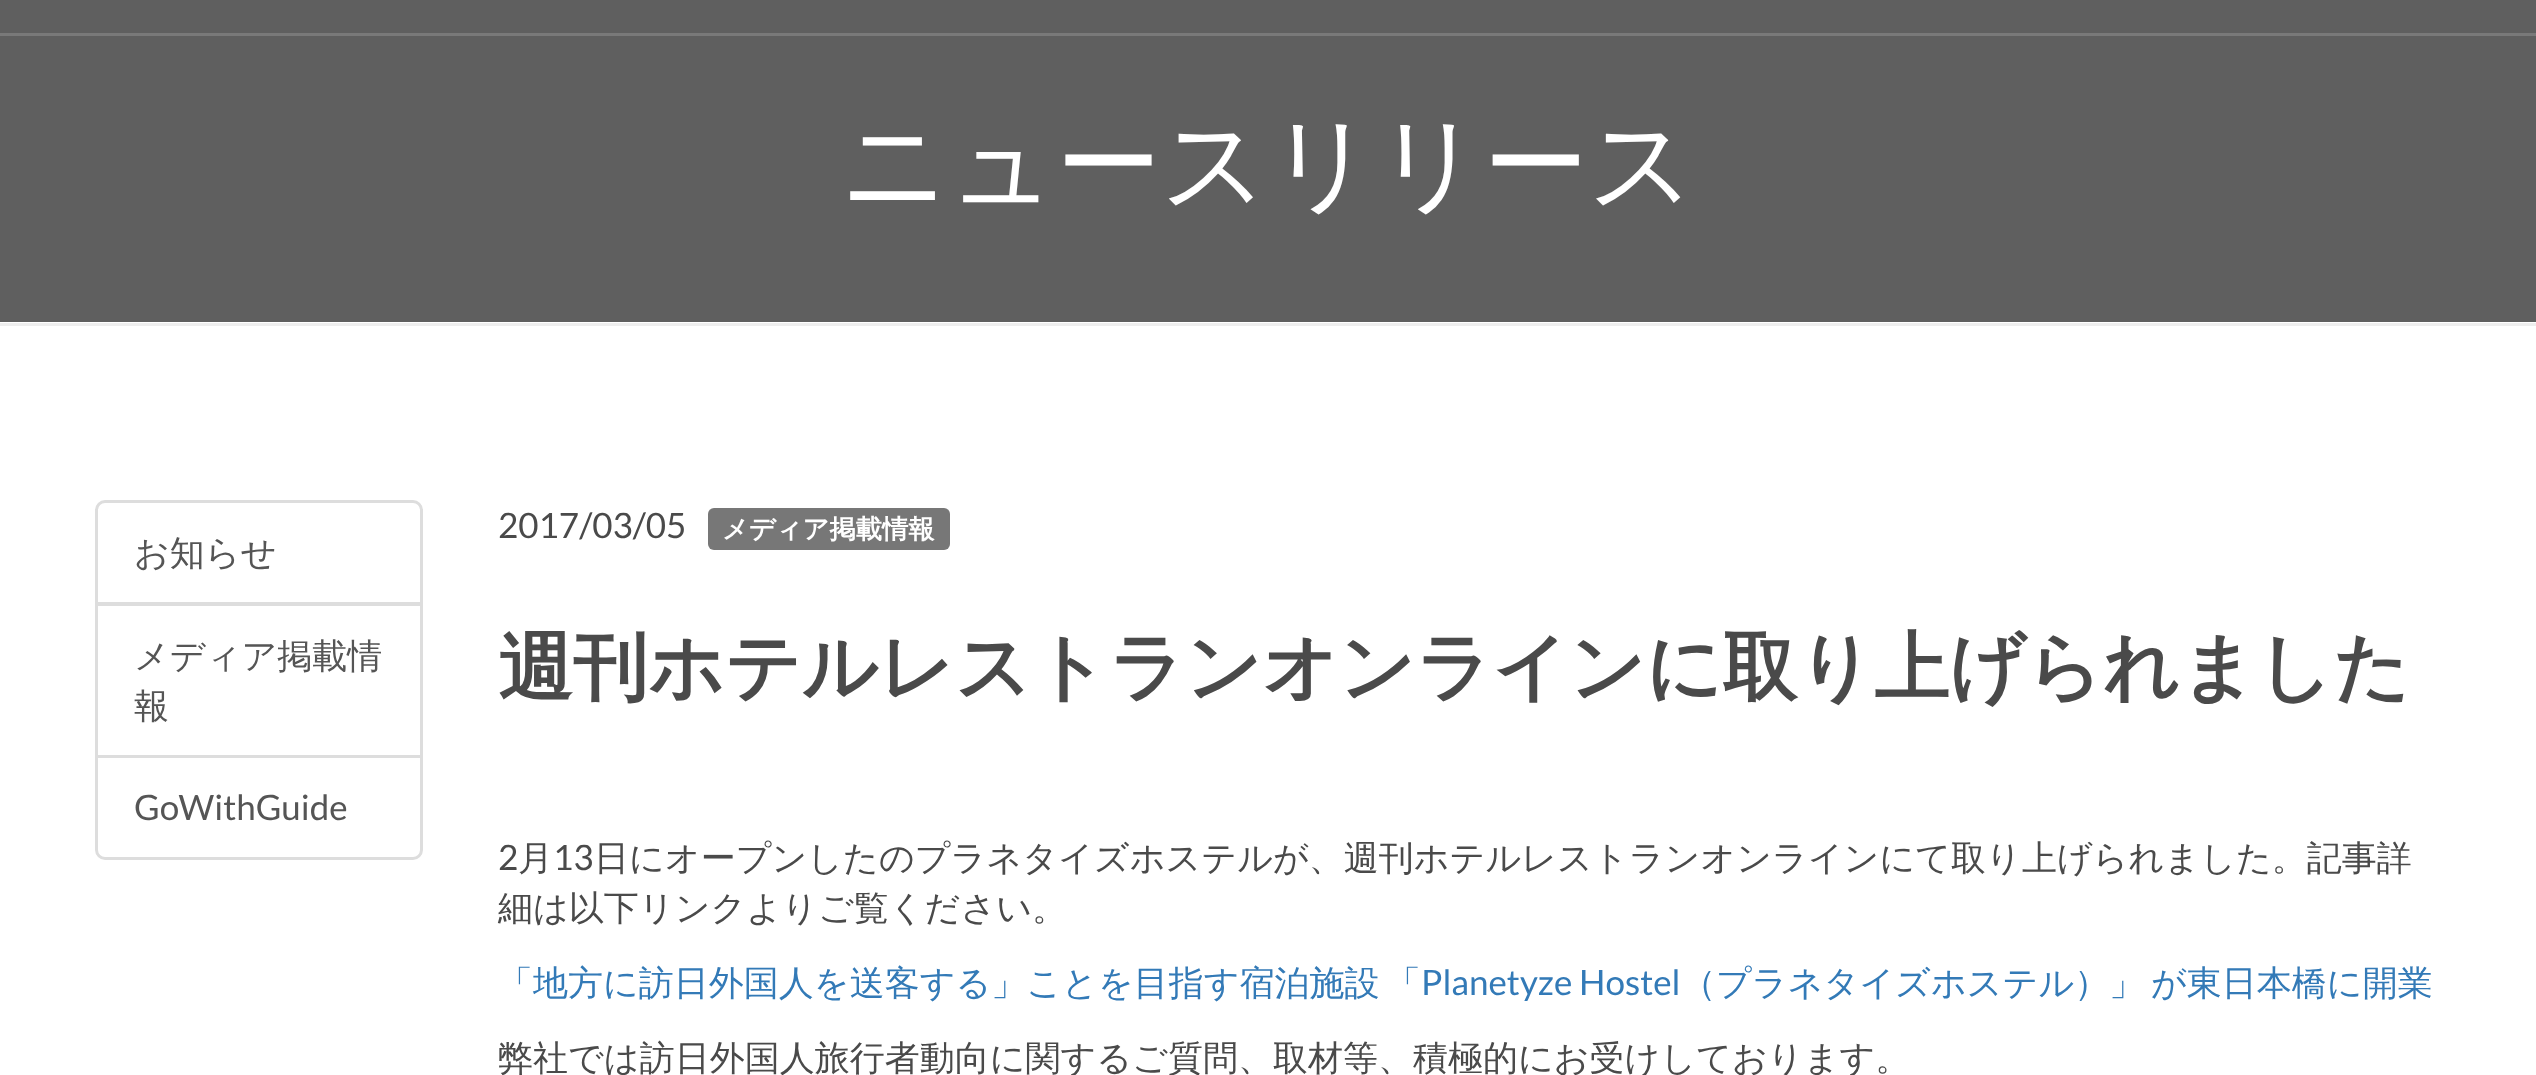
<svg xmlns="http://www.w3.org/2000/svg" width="2536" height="1075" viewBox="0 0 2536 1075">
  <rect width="100%" height="100%" fill="#fff"/>
  <path d="M0 0h2536v322H0z" fill="#5f5f5f"/>
  <path d="M0 33h2536v3H0z" fill="#797979"/>
  <path d="M0 323h2536v3H0z" fill="#eee"/>
  <path d="M105 501.5H413C417.5 501.5 421.5 505.5 421.5 510V603.5H96.5V510C96.5 505.5 100.5 501.5 105 501.5Z" fill="none" stroke="#ddd" stroke-width="3"/>
  <path d="M96.5 604.5h325v152H96.5z" fill="none" stroke="#ddd" stroke-width="3"/>
  <path d="M96.5 756.5H421.5V850C421.5 854.5 417.5 858.5 413 858.5H105C100.5 858.5 96.5 854.5 96.5 850Z" fill="#fff" stroke="#ddd" stroke-width="3"/>
  <rect x="708" y="508" width="242" height="42" rx="6" fill="#777"/>
  <text x="841" y="200" font-family="WenQuanYi Zen Hei" font-size="105" font-weight="500" fill="#fff">ニュースリリース</text>
  <g font-family="WenQuanYi Zen Hei" font-size="35" font-weight="500" fill="#555">
    <text x="134" y="565">お知らせ</text>
    <text x="134" y="668">メディア掲載情</text>
    <text x="134" y="718">報</text>
  </g>
  <text x="134" y="820" font-family="Lato" font-size="35" fill="#555">GoWithGuide</text>
  <text x="498" y="538" font-family="Lato" font-size="35" fill="#4a4a4a">2017/03/05</text>
  <text x="722" y="538" font-family="WenQuanYi Zen Hei" font-size="26.25" font-weight="bold" fill="#fff">メディア掲載情報</text>
  <text x="498" y="693" font-family="WenQuanYi Zen Hei" font-size="75" font-weight="bold" fill="#4a4a4a">週刊ホテルレストランオンラインに取り上げられました</text>
  <text x="498" y="870" font-family="Lato" font-size="35" fill="#4a4a4a">2</text>
  <text x="518" y="870" font-family="WenQuanYi Zen Hei" font-size="35" font-weight="500" fill="#4a4a4a">月</text>
  <text x="553" y="870" font-family="Lato" font-size="35" fill="#4a4a4a">13</text>
  <g font-family="WenQuanYi Zen Hei" font-size="35" font-weight="500" fill="#4a4a4a">
    <text x="594" y="870">日にオープンしたのプラネタイズホステルが、週刊ホテルレストランオンラインにて取り上げられました。記事詳</text>
    <text x="498" y="920">細は以下リンクよりご覧ください。</text>
  </g>
  <g font-family="WenQuanYi Zen Hei" font-size="35" font-weight="500" fill="#337ab7">
    <text x="498" y="995">「地方に訪日外国人を送客する」ことを目指す宿泊施設</text>
    <text x="1386" y="995">「</text>
  </g>
  <text x="1421" y="995" font-family="Lato" font-size="35" fill="#337ab7">Planetyze Hostel</text>
  <g font-family="WenQuanYi Zen Hei" font-size="35" font-weight="500" fill="#337ab7">
    <text x="1681" y="995">（プラネタイズホステル）」</text>
    <text x="2151" y="995">が東日本橋に開業</text>
  </g>
  <text x="498" y="1070" font-family="WenQuanYi Zen Hei" font-size="35" font-weight="500" fill="#4a4a4a">弊社では訪日外国人旅行者動向に関するご質問、取材等、積極的にお受けしております。</text>
</svg>
